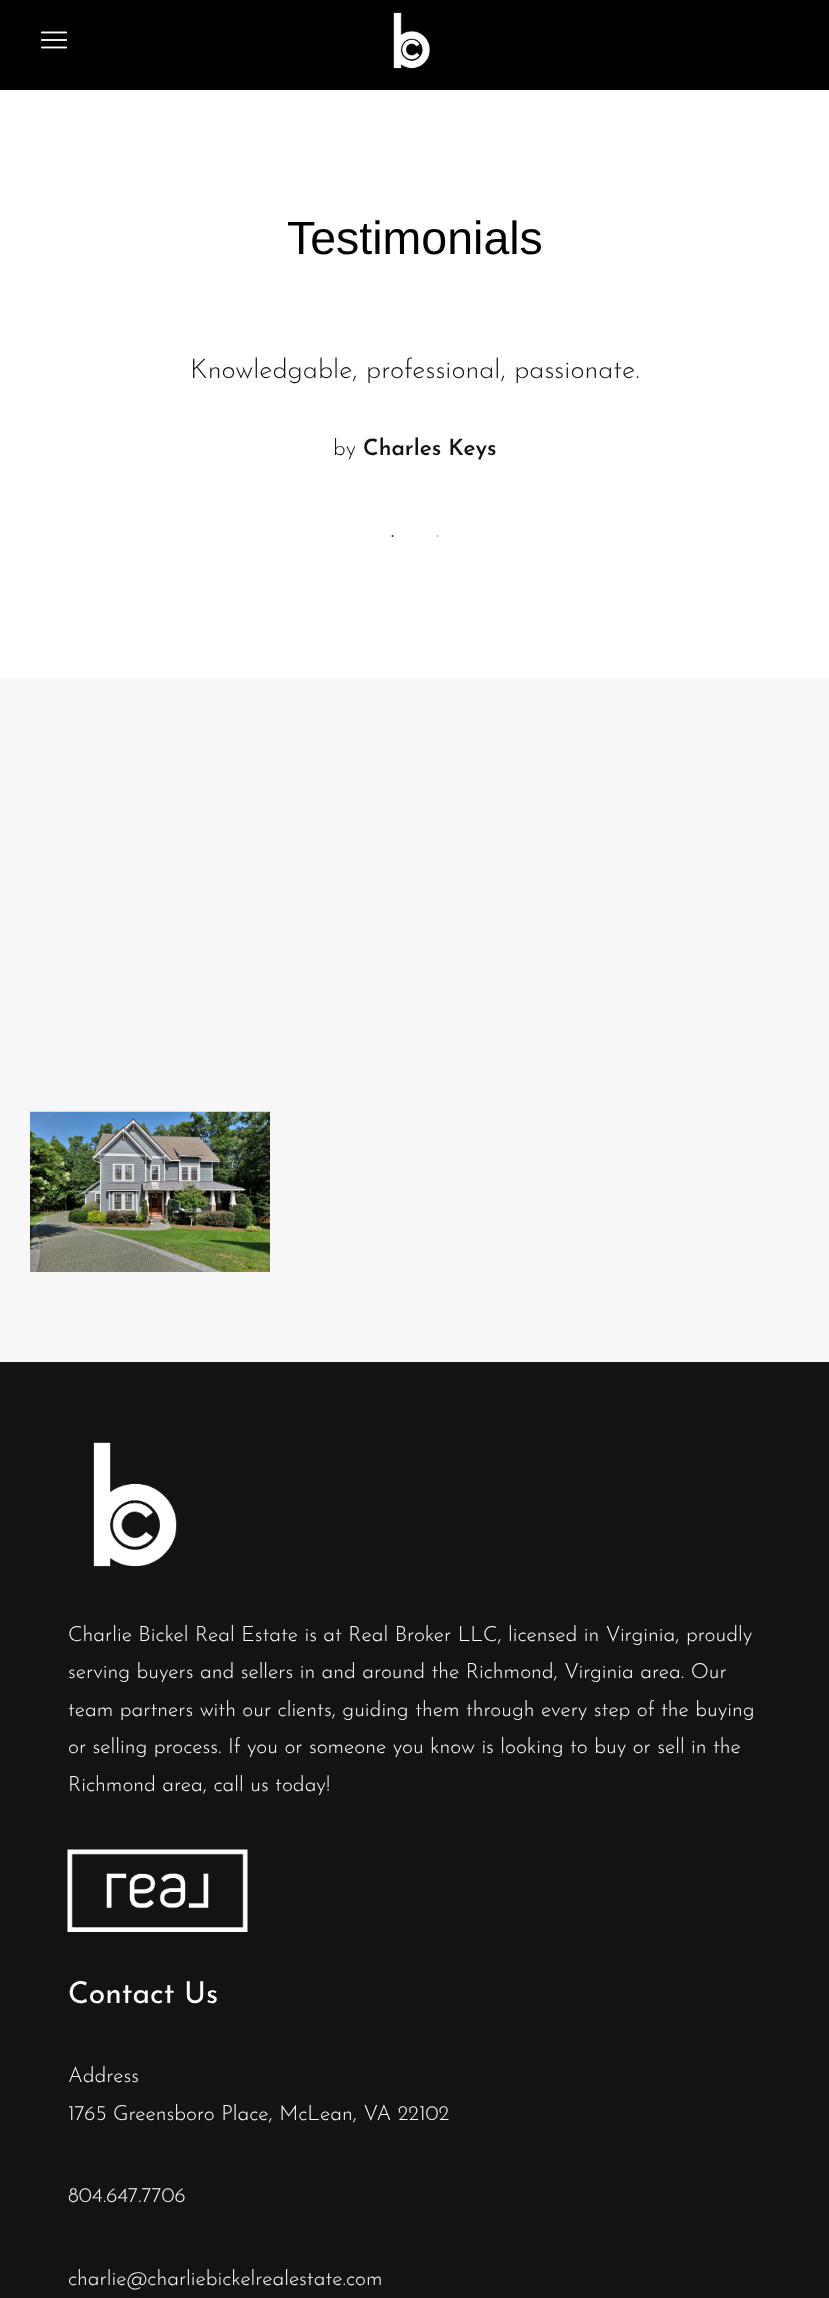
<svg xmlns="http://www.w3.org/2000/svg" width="829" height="2298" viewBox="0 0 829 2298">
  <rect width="100%" height="100%" fill="#f7f7f7"/>
  <path d="M0 0h829v90H0z" fill="#000"/>
  <image x="40" y="31" width="28" height="18" href="img/1.png"/>
  <image x="393" y="12" width="37" height="57" href="img/2.png"/>
  <path d="M0 90h829v588H0z" fill="#fff"/>
  <image x="30" y="1111" width="240" height="161" href="img/3.png"/>
  <path d="M0 1362h829v936H0z" fill="#121413"/>
  <image x="93" y="1442" width="84" height="125" href="img/4.png"/>
  <image x="67" y="1849" width="181" height="83" href="img/5.png"/>
  <text x="287" y="254" font-family="Liberation Sans" font-size="46.5" fill="#000">Testimonials</text>
  <text x="190" y="378" font-family="Josefin Sans" font-size="27" font-weight="300" fill="#121413">Knowledgable, professional, passionate.</text>
  <text x="333" y="455" font-family="Josefin Sans" font-size="22.5" font-weight="300" fill="#121413">by</text>
  <text x="363" y="455" font-family="Josefin Sans" font-size="22.5" font-weight="600" fill="#121413">Charles Keys</text>
  <text x="391" y="539" font-family="Liberation Serif" font-size="9" fill="#404040">•</text>
  <text x="436" y="539" font-family="Liberation Serif" font-size="9" fill="#bfbfbf">•</text>
  <g font-family="Josefin Sans" font-size="21" font-weight="300" fill="#fff">
    <text x="68" y="1641">Charlie Bickel Real Estate is at Real Broker LLC, licensed in Virginia, proudly</text>
    <text x="68" y="1678">serving buyers and sellers in and around the Richmond, Virginia area. Our</text>
    <text x="68" y="1716">team partners with our clients, guiding them through every step of the buying</text>
    <text x="68" y="1753">or selling process. If you or someone you know is looking to buy or sell in the</text>
    <text x="68" y="1791">Richmond area, call us today!</text>
  </g>
  <text x="68" y="2003" font-family="Josefin Sans" font-size="30" fill="#fff">Contact Us</text>
  <g font-family="Josefin Sans" font-size="21" font-weight="300" fill="#fff">
    <text x="68" y="2082">Address</text>
    <text x="68" y="2120">1765 Greensboro Place, McLean, VA 22102</text>
    <text x="68" y="2202">804.647.7706</text>
    <text x="68" y="2285">charlie@charliebickelrealestate.com</text>
  </g>
</svg>
